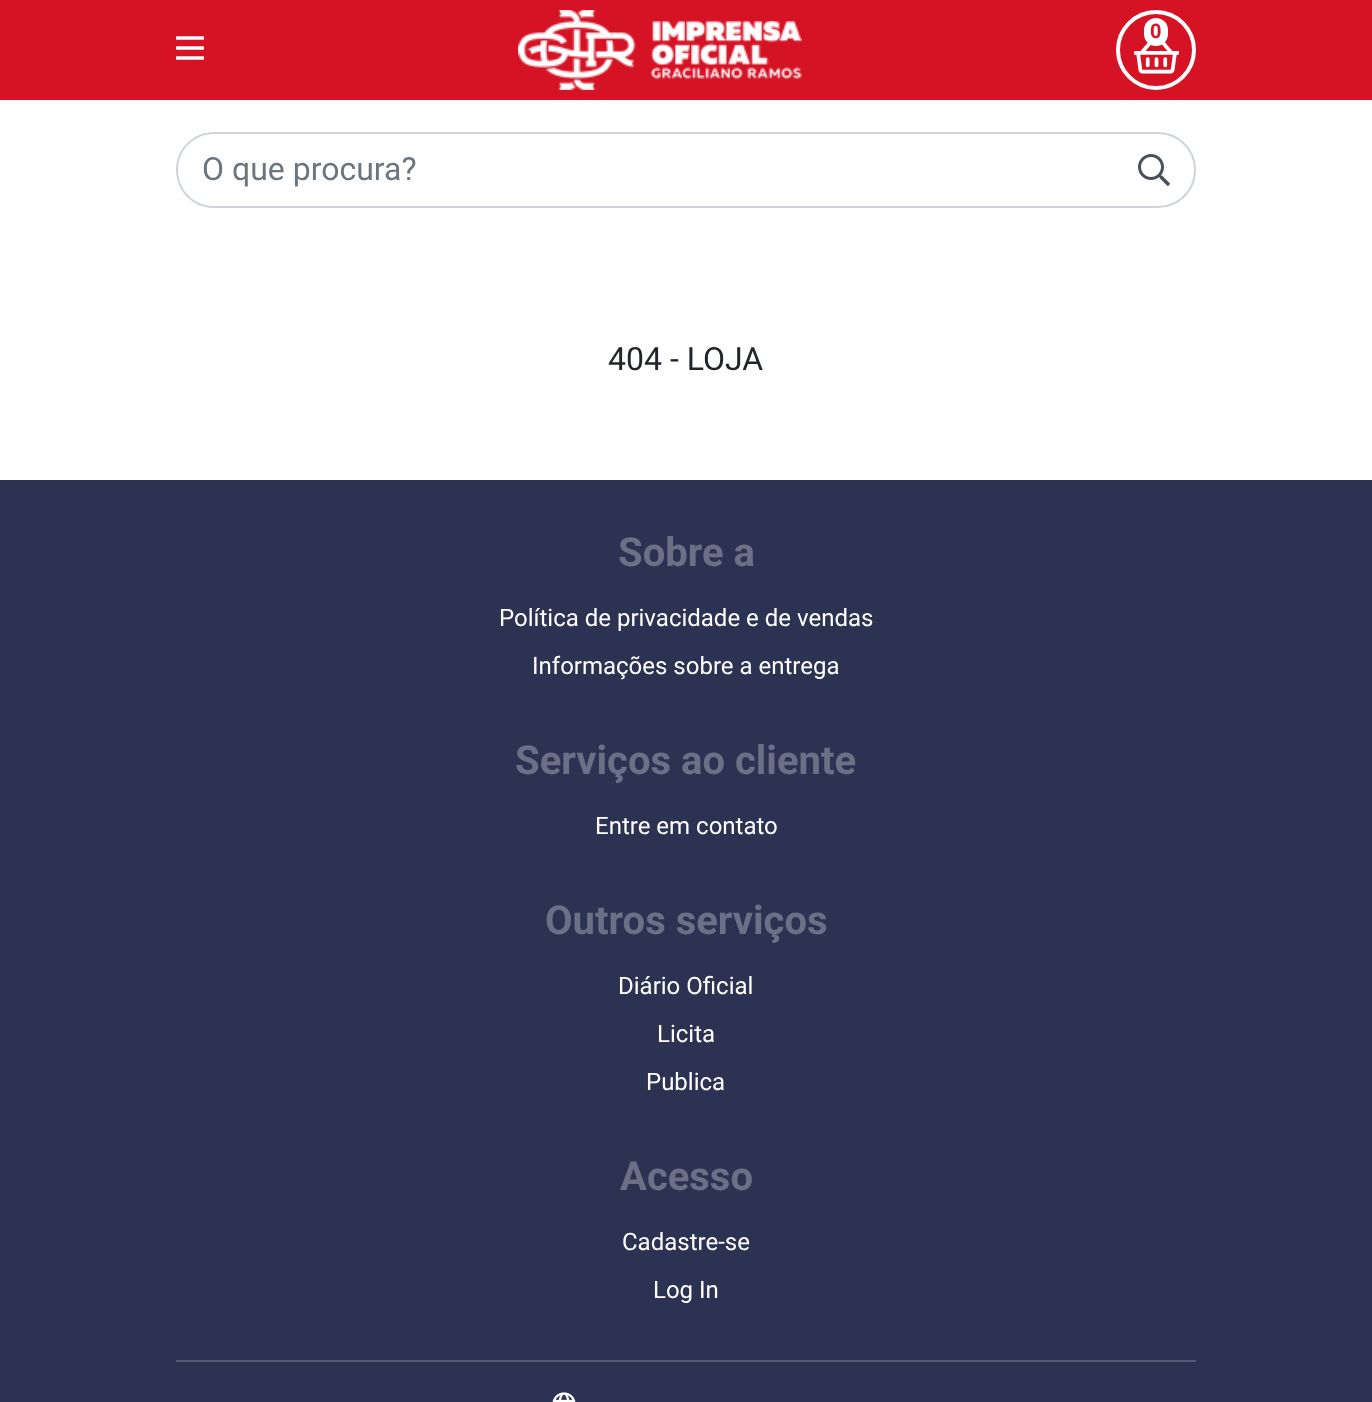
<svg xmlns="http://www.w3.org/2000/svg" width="1372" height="1402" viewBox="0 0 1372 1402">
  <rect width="100%" height="100%" fill="#fff"/>
  <path d="M0 0h1372v100H0z" fill="#d61225"/>
  <image x="518" y="10" width="284" height="80" href="img/1.png"/>
  <circle cx="1156" cy="50" r="38" fill="none" stroke="#fff" stroke-width="4"/>
  <image x="1134" y="41" width="45" height="33" href="img/2.png"/>
  <rect x="1144" y="18" width="24" height="28" rx="12" fill="#fff"/>
  <image x="176" y="36" width="28" height="24" href="img/3.png"/>
  <path d="M1113 133H1158C1178.5 133 1195 149.5 1195 170C1195 190.5 1178.5 207 1158 207H1113Z" fill="none" stroke="#ced4da" stroke-width="2"/>
  <path d="M214 134H1114V206H214C194 206 178 190 178 170C178 150 194 134 214 134Z" fill="#fff"/>
  <path d="M214 132H1114V208H214C193 208 176 191 176 170C176 149 193 132 214 132ZM214 134H1114V206H214C194 206 178 190 178 170C178 150 194 134 214 134Z" fill="#ced4da" fill-rule="evenodd"/>
  <image x="1138" y="154" width="32" height="32" href="img/4.png"/>
  <path d="M0 480h1372v922H0z" fill="#2c3352"/>
  <path d="M176 1360h1020v2H176z" fill="#565c75"/>
  <image x="552" y="1392" width="24" height="10" href="img/5.png"/>
  <text x="1150" y="38" font-family="Roboto" font-size="20" font-weight="bold" fill="#d61225">0</text>
  <text x="202" y="180" font-family="Roboto" font-size="32" fill="#6c757d">O que procura?</text>
  <text x="608" y="370" font-family="Roboto" font-size="32" fill="#212529">404 - LOJA</text>
  <text x="618" y="566" font-family="Roboto" font-size="40" font-weight="bold" fill="#6b7086">Sobre a</text>
  <g font-family="Roboto" font-size="24" fill="#fff">
    <text x="499" y="626">Política de privacidade e de vendas</text>
    <text x="532" y="674">Informações sobre a entrega</text>
  </g>
  <text x="515" y="774" font-family="Roboto" font-size="40" font-weight="bold" fill="#6b7086">Serviços ao cliente</text>
  <text x="595" y="834" font-family="Roboto" font-size="24" fill="#fff">Entre em contato</text>
  <text x="545" y="934" font-family="Roboto" font-size="40" font-weight="bold" fill="#6b7086">Outros serviços</text>
  <g font-family="Roboto" font-size="24" fill="#fff">
    <text x="618" y="994">Diário Oficial</text>
    <text x="657" y="1042">Licita</text>
    <text x="646" y="1090">Publica</text>
  </g>
  <text x="620" y="1190" font-family="Roboto" font-size="40" font-weight="bold" fill="#6b7086">Acesso</text>
  <g font-family="Roboto" font-size="24" fill="#fff">
    <text x="622" y="1250">Cadastre-se</text>
    <text x="653" y="1298">Log In</text>
  </g>
</svg>
